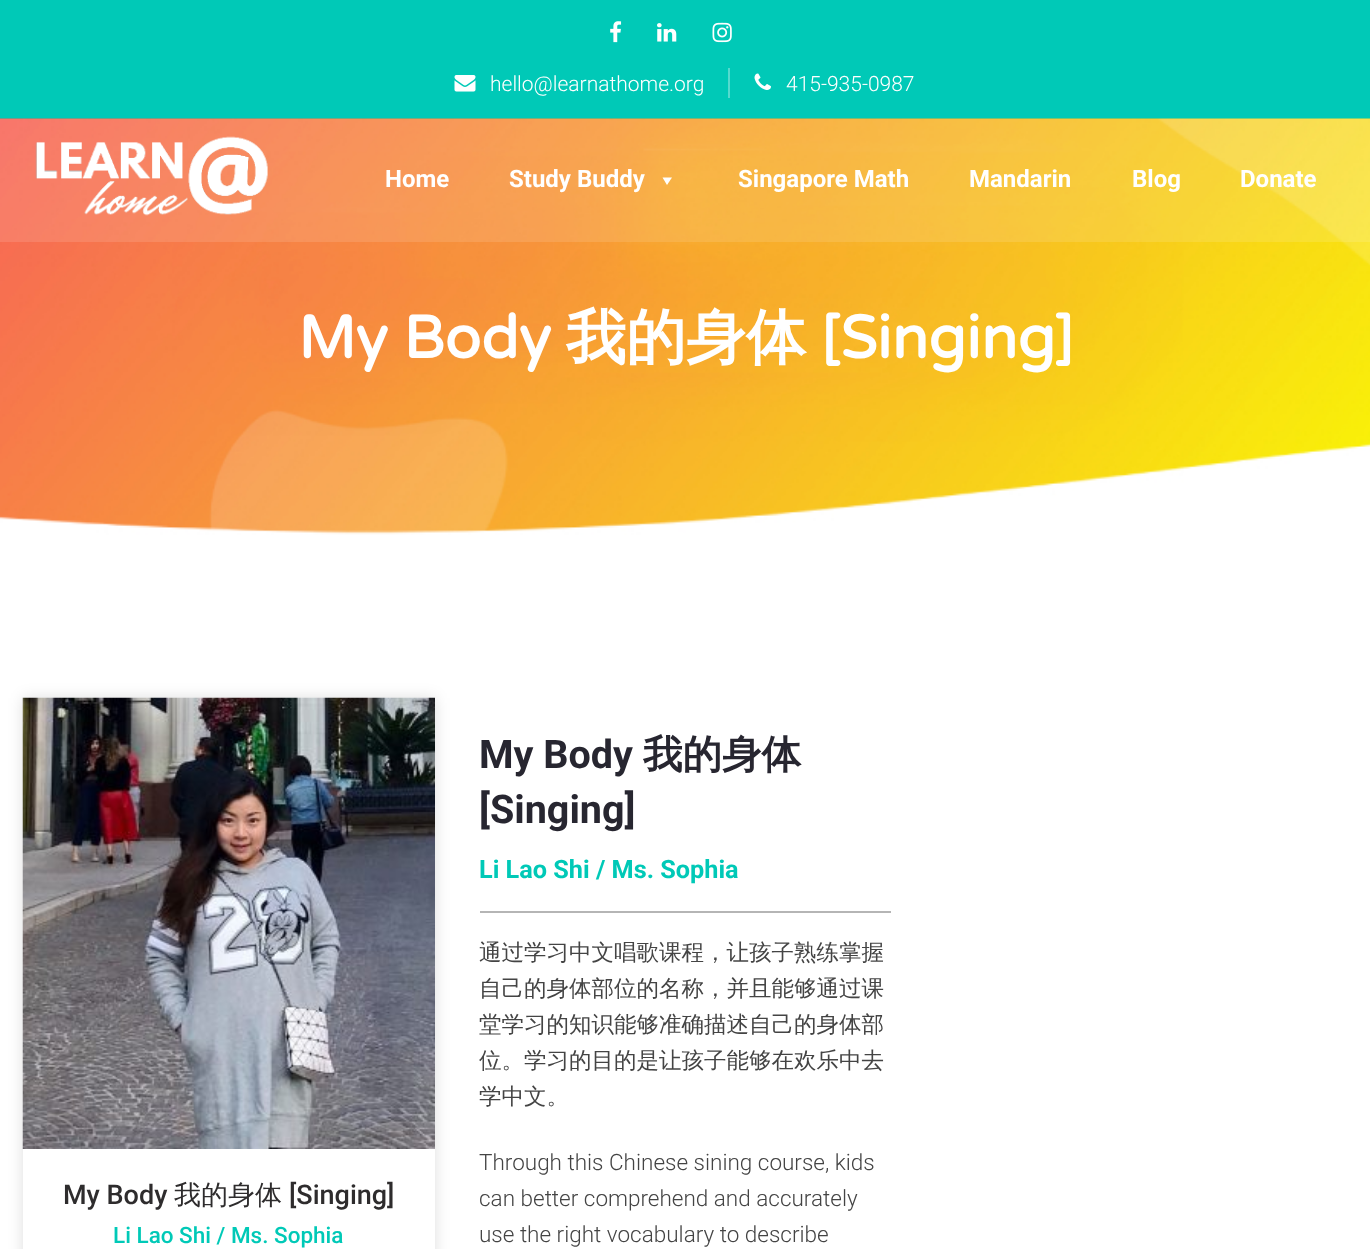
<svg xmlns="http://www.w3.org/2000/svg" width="1370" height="1249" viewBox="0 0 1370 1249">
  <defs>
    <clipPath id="clip1"><path d="M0 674H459V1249H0ZM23 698H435V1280H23Z" clip-rule="evenodd"/></clipPath>
  </defs>
  <rect width="100%" height="100%" fill="#fff"/>
  <path d="M0 0h1370v119H0z" fill="#00c9b7"/>
  <image x="610" y="21" width="12" height="22" href="img/1.png"/>
  <image x="657" y="23" width="20" height="19" href="img/2.png"/>
  <image x="712" y="22" width="20" height="21" href="img/3.png"/>
  <path d="M728 68h2v30H728z" fill="#55dace"/>
  <image x="454" y="75" width="22" height="17" href="img/4.png"/>
  <image x="754" y="73" width="17" height="17" href="img/5.png"/>
  <image x="0" y="118" width="1370" height="417" href="img/7.png"/>
  <path d="M0 119h1370v123H0z" fill="#ffffff1f"/>
  <image x="35" y="136" width="233" height="80" href="img/6.png"/>
  <path d="M672 177.5L667 185L662.5 177.5Z" fill="#fff"/>
  <g clip-path="url(#clip1)">
    <path d="M23 698h412v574H23z" fill="#00000021" filter="blur(7.5px)"/>
  </g>
  <image x="22" y="697" width="413" height="452" href="img/8.png"/>
  <path d="M480 911h411v2H480z" fill="#b5b5b5"/>
  <g font-family="Roboto" font-size="21" font-weight="300" fill="#fff">
    <text x="490" y="91">hello@learnathome.org</text>
    <text x="786" y="91">415-935-0987</text>
  </g>
  <g font-family="Roboto" font-size="24" font-weight="bold" fill="#fff">
    <text x="385" y="187">Home</text>
    <text x="509" y="187">Study Buddy</text>
    <text x="738" y="187">Singapore Math</text>
    <text x="969" y="187">Mandarin</text>
    <text x="1132" y="187">Blog</text>
    <text x="1240" y="187">Donate</text>
  </g>
  <text x="298" y="358" font-family="Varela Round" font-size="60" font-weight="bold" fill="#fff">My Body</text>
  <text x="566" y="358" font-family="WenQuanYi Zen Hei" font-size="60" font-weight="bold" fill="#fff">我的身体</text>
  <text x="821" y="358" font-family="Varela Round" font-size="60" font-weight="bold" fill="#fff">[Singing]</text>
  <text x="63" y="1204" font-family="Roboto" font-size="27" font-weight="500" fill="#2e2c2d">My Body</text>
  <text x="174" y="1204" font-family="WenQuanYi Zen Hei" font-size="27" font-weight="500" fill="#2e2c2d">我的身体</text>
  <text x="289" y="1204" font-family="Roboto" font-size="27" font-weight="500" fill="#2e2c2d">[Singing]</text>
  <text x="113" y="1243" font-family="Roboto" font-size="22.5" font-weight="500" fill="#00c9b7">Li Lao Shi / Ms. Sophia</text>
  <text x="479" y="768" font-family="Roboto" font-size="39.5" font-weight="bold" fill="#272630">My Body</text>
  <text x="643" y="768" font-family="WenQuanYi Zen Hei" font-size="39.5" font-weight="bold" fill="#272630">我的身体</text>
  <text x="479" y="823" font-family="Roboto" font-size="39.5" font-weight="bold" fill="#272630">[Singing]</text>
  <text x="479" y="878" font-family="Roboto" font-size="25.25" font-weight="bold" fill="#00c9b7">Li Lao Shi / Ms. Sophia</text>
  <g font-family="WenQuanYi Zen Hei" font-size="22.5" font-weight="500" fill="#444">
    <text x="479" y="960">通过学习中文唱歌课程，让孩子熟练掌握</text>
    <text x="479" y="996">自己的身体部位的名称，并且能够通过课</text>
    <text x="479" y="1032">堂学习的知识能够准确描述自己的身体部</text>
    <text x="479" y="1068">位。学习的目的是让孩子能够在欢乐中去</text>
    <text x="479" y="1104">学中文。</text>
  </g>
  <g font-family="Roboto" font-size="22.5" font-weight="300" fill="#444">
    <text x="479" y="1170">Through this Chinese sining course, kids</text>
    <text x="479" y="1206">can better comprehend and accurately</text>
    <text x="479" y="1242">use the right vocabulary to describe</text>
  </g>
</svg>
